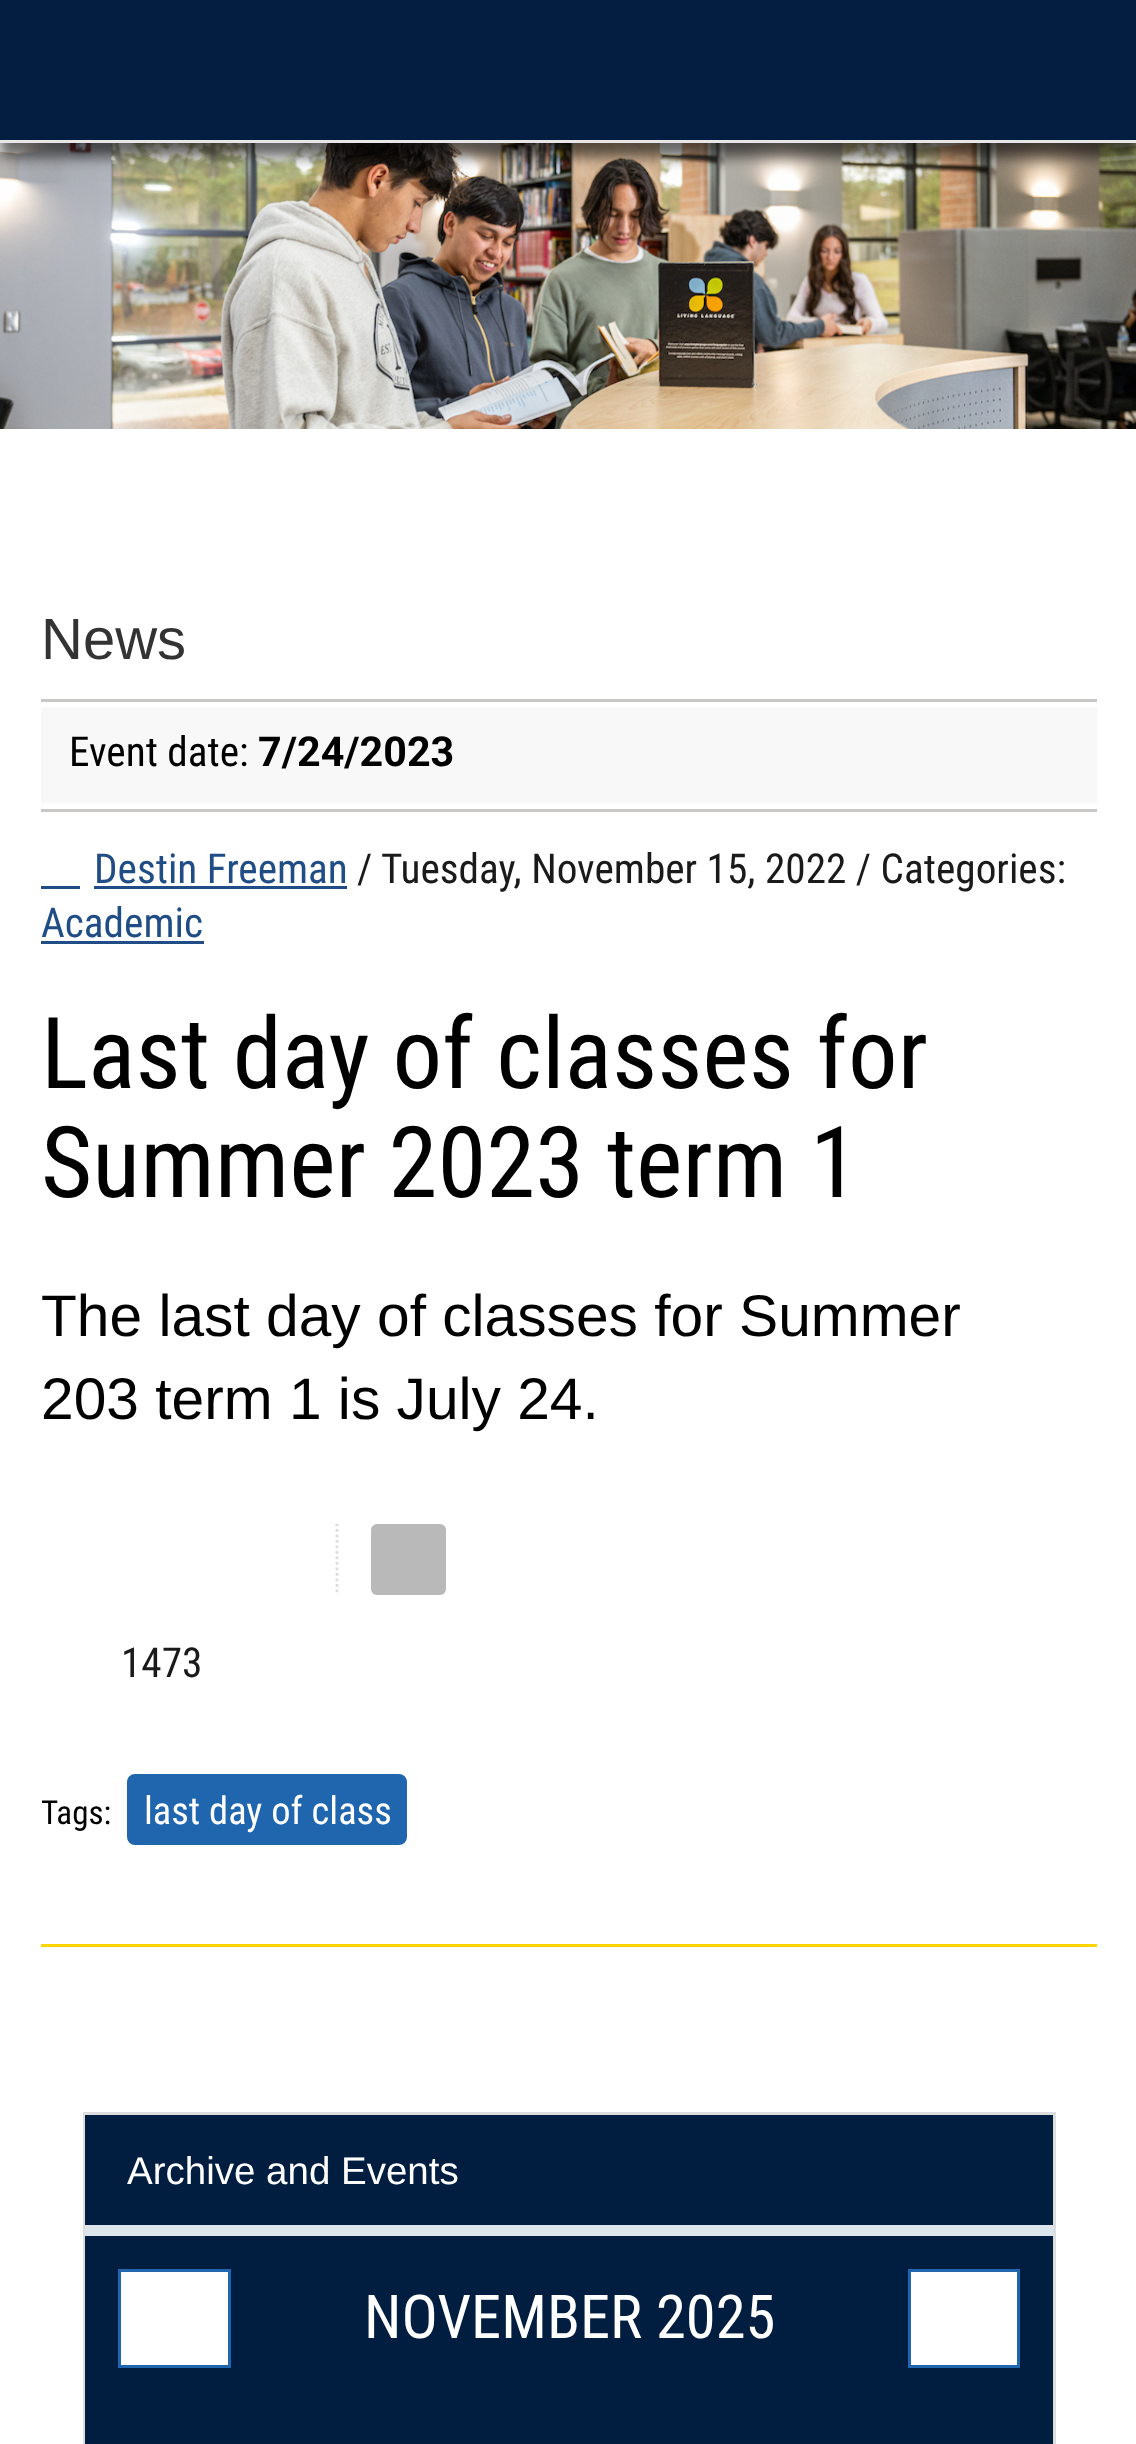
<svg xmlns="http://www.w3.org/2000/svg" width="1136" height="2444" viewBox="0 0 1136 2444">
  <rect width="100%" height="100%" fill="#fff"/>
  <image x="0" y="143" width="1136" height="286" href="img/1.png"/>
  <path d="M0 14h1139v143H0z" fill="#00000099" filter="blur(7px)"/>
  <path d="M0 0h1136v140H0z" fill="#041e42"/>
  <path d="M0 140h1136v3H0z" fill="#e7e7e7"/>
  <path d="M41 1944h1056v3H41z" fill="#ffd400"/>
  <path d="M41 707h1056v96H41z" fill="#f8f8f8"/>
  <path d="M41 699h1056v3H41z" fill="#cac7c7"/>
  <path d="M41 809h1056v3H41z" fill="#cac7c7"/>
  <path d="M41 886h39v3H41z" fill="#204d86"/>
  <path d="M94 886h253v3H94z" fill="#204d86"/>
  <path d="M41 941h163v3H41z" fill="#204d86"/>
  <rect x="371" y="1524" width="75" height="71" rx="6" fill="#b9b9b9"/>
  <path d="M337 1523.5V1595" fill="none" stroke="#ddd" stroke-width="2.8" stroke-dasharray="2.75 2.75"/>
  <rect x="128.5" y="1775.5" width="277" height="68" rx="6.5" fill="#2066af" stroke="#2066af" stroke-width="3"/>
  <path d="M84.5 2113.5h970v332H84.5z" fill="none" stroke="#ddd" stroke-width="3"/>
  <path d="M85 2115h968v110H85z" fill="#011e41"/>
  <path d="M85 2225h968v11H85z" fill="#dde5ed"/>
  <path d="M85 2236h968v168H85z" fill="#011e41"/>
  <path d="M119.5 2270.5h110v96H119.5z" fill="#fff" stroke="#2066af" stroke-width="3"/>
  <path d="M909.5 2270.5h109v96H909.5z" fill="#fff" stroke="#2066af" stroke-width="3"/>
  <path d="M85 2404h968v40H85z" fill="#011e41"/>
  <text x="41" y="659" font-family="Liberation Sans" font-size="58" fill="#333">News</text>
  <text x="69" y="766" font-family="Roboto Condensed" font-size="41.25" fill="#000">Event date:</text>
  <text x="258" y="766" font-family="Roboto" font-size="41.25" font-weight="bold" fill="#000">7/24/2023</text>
  <text x="94" y="883" font-family="Roboto Condensed" font-size="41.25" fill="#204d86">Destin Freeman</text>
  <text x="357" y="883" font-family="Roboto Condensed" font-size="41.25" fill="#1b1a1a">/ Tuesday, November 15, 2022 / Categories:</text>
  <text x="41" y="937" font-family="Roboto Condensed" font-size="41.25" fill="#204d86">Academic</text>
  <g font-family="Roboto Condensed" font-size="99" fill="#000">
    <text x="41" y="1088">Last day of classes for</text>
    <text x="41" y="1197">Summer 2023 term 1</text>
  </g>
  <g font-family="Liberation Sans" font-size="58.7" fill="#000">
    <text x="41" y="1336">The last day of classes for Summer</text>
    <text x="41" y="1419">203 term 1 is July 24.</text>
  </g>
  <text x="121" y="1677" font-family="Roboto Condensed" font-size="41.25" fill="#1b1a1a">1473</text>
  <text x="41" y="1824" font-family="Roboto Condensed" font-size="33" fill="#000">Tags:</text>
  <text x="144" y="1824" font-family="Roboto Condensed" font-size="38.5" fill="#fff">last day of class</text>
  <text x="127" y="2184" font-family="Liberation Sans" font-size="38.5" fill="#fff">Archive and Events</text>
  <text x="364" y="2338" font-family="Roboto Condensed" font-size="60.5" fill="#fff">NOVEMBER 2025</text>
</svg>
